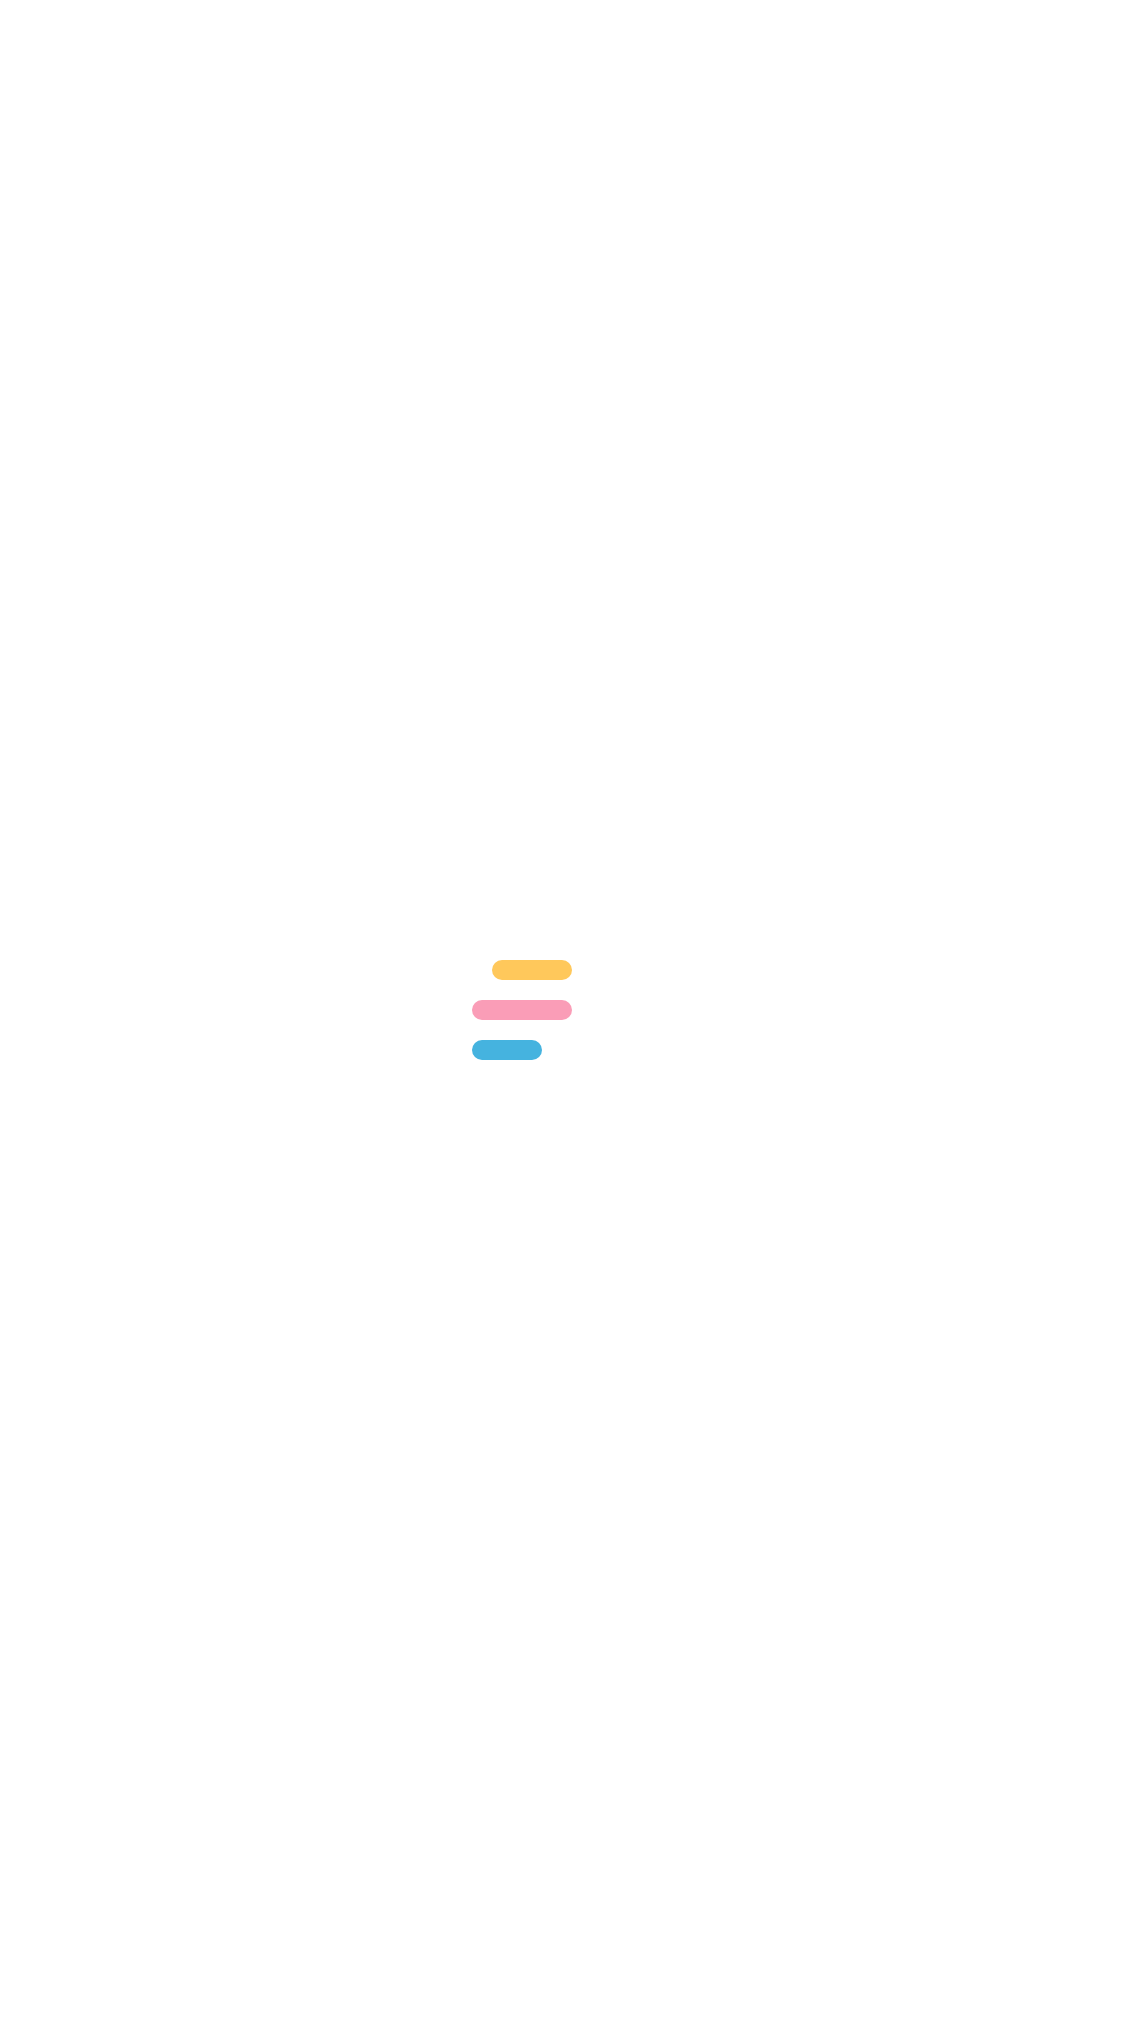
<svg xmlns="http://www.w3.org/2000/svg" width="1141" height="2017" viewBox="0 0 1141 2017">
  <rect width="100%" height="100%" fill="#fff"/>
  <rect x="472" y="1000" width="100" height="20" rx="10" fill="#fa9db7"/>
  <rect x="492" y="960" width="80" height="20" rx="10" fill="#ffc85b"/>
  <rect x="472" y="1040" width="70" height="20" rx="10" fill="#45b3df"/>
</svg>
